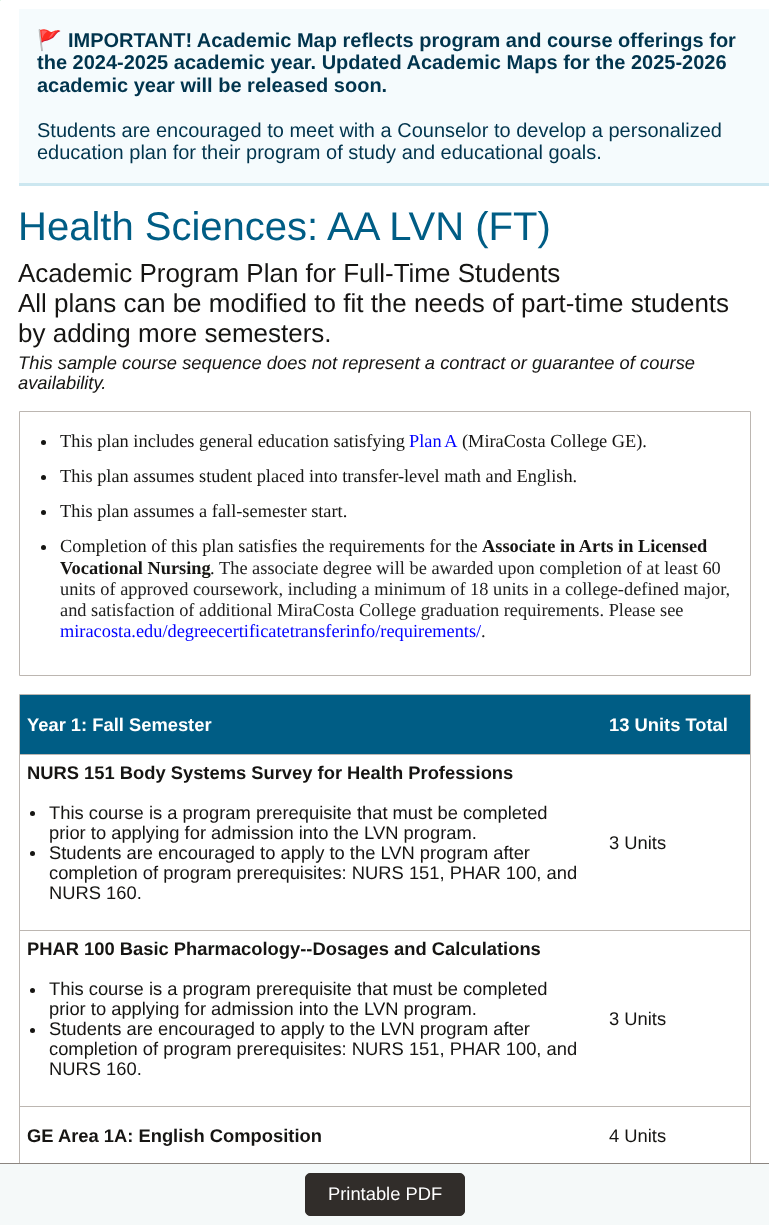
<svg xmlns="http://www.w3.org/2000/svg" width="769" height="1225" viewBox="0 0 769 1225">
  <rect width="100%" height="100%" fill="#fff"/>
  <path d="M0 0h1v1H0z" fill="#e0f5e7"/>
  <path d="M19 9h750v174H19z" fill="#f5fbfd"/>
  <path d="M19 183h750v3H19z" fill="#cce7f0"/>
  <path d="M19.5 411.5h731v264H19.5z" fill="none" stroke="#bcb6b1"/>
  <circle cx="43.5" cy="442.5" r="2.5" fill="#161513"/>
  <circle cx="43.5" cy="477.5" r="2.5" fill="#161513"/>
  <circle cx="43.5" cy="512.5" r="2.5" fill="#161513"/>
  <circle cx="43.5" cy="547.5" r="2.5" fill="#161513"/>
  <path d="M19.5 694.5h731v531H19.5z" fill="none" stroke="#bcb6b1"/>
  <path d="M20 695h730v59H20z" fill="#005d85"/>
  <path d="M20 754h730v1H20z" fill="#bcb6b1"/>
  <path d="M20 930h730v1H20z" fill="#bcb6b1"/>
  <circle cx="32.5" cy="813.5" r="2.5" fill="#161513"/>
  <circle cx="32.5" cy="853.5" r="2.5" fill="#161513"/>
  <path d="M20 1106h730v1H20z" fill="#bcb6b1"/>
  <circle cx="32.5" cy="990.5" r="2.5" fill="#161513"/>
  <circle cx="32.5" cy="1030.5" r="2.5" fill="#161513"/>
  <path d="M0 1164h769v61H0z" fill="#f5f9f9"/>
  <path d="M0 1163h769v1H0z" fill="#8b8580"/>
  <rect x="305.5" y="1173.5" width="159" height="42" rx="4.5" fill="#312d2a" stroke="#312d2a"/>
  <text x="37" y="47" font-family="Noto Color Emoji" font-size="20" font-weight="bold" fill="#00344d">🚩</text>
  <g font-family="Liberation Sans" font-size="20" font-weight="bold" fill="#00344d">
    <text x="68" y="47">IMPORTANT! Academic Map reflects program and course offerings for</text>
    <text x="37" y="69">the 2024-2025 academic year. Updated Academic Maps for the 2025-2026</text>
    <text x="37" y="92">academic year will be released soon.</text>
  </g>
  <g font-family="Liberation Sans" font-size="20" fill="#00344d">
    <text x="37" y="137">Students are encouraged to meet with a Counselor to develop a personalized</text>
    <text x="37" y="159">education plan for their program of study and educational goals.</text>
  </g>
  <text x="18" y="240" font-family="Liberation Sans" font-size="40" fill="#005d85">Health Sciences: AA LVN (FT)</text>
  <g font-family="Liberation Sans" font-size="26" fill="#161513">
    <text x="18" y="282">Academic Program Plan for Full-Time Students</text>
    <text x="18" y="312">All plans can be modified to fit the needs of part-time students</text>
    <text x="18" y="342">by adding more semesters.</text>
  </g>
  <g font-family="Liberation Sans" font-size="18.35" font-style="italic" fill="#161513">
    <text x="18" y="369">This sample course sequence does not represent a contract or guarantee of course</text>
    <text x="18" y="389">availability.</text>
  </g>
  <text x="60" y="447" font-family="Liberation Serif" font-size="18.35" fill="#161513">This plan includes general education satisfying</text>
  <text x="409" y="447" word-spacing="-1" font-family="Liberation Serif" font-size="18.35" fill="#00f">Plan A</text>
  <g font-family="Liberation Serif" font-size="18.35" fill="#161513">
    <text x="462" y="447">(MiraCosta College GE).</text>
    <text x="60" y="482">This plan assumes student placed into transfer-level math and English.</text>
    <text x="60" y="517">This plan assumes a fall-semester start.</text>
    <text x="60" y="552">Completion of this plan satisfies the requirements for the</text>
  </g>
  <g font-family="Liberation Serif" font-size="18.35" font-weight="bold" fill="#161513">
    <text x="482" y="552">Associate in Arts in Licensed</text>
    <text x="60" y="574">Vocational Nursing</text>
  </g>
  <text x="210" y="574" font-family="Liberation Serif" font-size="18.35" fill="#161513">.</text>
  <g font-family="Liberation Serif" font-size="18.35" fill="#212121">
    <text x="219" y="574">The associate degree will be awarded upon completion of at least 60</text>
    <text x="60" y="595">units of approved coursework, including a minimum of 18 units in a college-defined major,</text>
    <text x="60" y="616">and satisfaction of additional MiraCosta College graduation requirements. Please see</text>
  </g>
  <text x="60" y="637" font-family="Liberation Serif" font-size="18.35" fill="#00f">miracosta.edu/degreecertificatetransferinfo/requirements/</text>
  <text x="481" y="637" font-family="Liberation Serif" font-size="18.35" fill="#212121">.</text>
  <g font-family="Liberation Sans" font-size="18.35" font-weight="bold" fill="#fff">
    <text x="27" y="731">Year 1: Fall Semester</text>
    <text x="609" y="731">13 Units Total</text>
  </g>
  <text x="27" y="779" font-family="Liberation Sans" font-size="18.35" font-weight="bold" fill="#161513">NURS 151 Body Systems Survey for Health Professions</text>
  <g font-family="Liberation Sans" font-size="18.35" fill="#161513">
    <text x="49" y="819">This course is a program prerequisite that must be completed</text>
    <text x="49" y="839">prior to applying for admission into the LVN program.</text>
    <text x="49" y="859">Students are encouraged to apply to the LVN program after</text>
    <text x="49" y="879">completion of program prerequisites: NURS 151, PHAR 100, and</text>
    <text x="49" y="899">NURS 160.</text>
    <text x="609" y="849">3 Units</text>
  </g>
  <text x="27" y="955" font-family="Liberation Sans" font-size="18.35" font-weight="bold" fill="#161513">PHAR 100 Basic Pharmacology--Dosages and Calculations</text>
  <g font-family="Liberation Sans" font-size="18.35" fill="#161513">
    <text x="49" y="995">This course is a program prerequisite that must be completed</text>
    <text x="49" y="1015">prior to applying for admission into the LVN program.</text>
    <text x="49" y="1035">Students are encouraged to apply to the LVN program after</text>
    <text x="49" y="1055">completion of program prerequisites: NURS 151, PHAR 100, and</text>
    <text x="49" y="1075">NURS 160.</text>
    <text x="609" y="1025">3 Units</text>
  </g>
  <text x="27" y="1142" font-family="Liberation Sans" font-size="18.35" font-weight="bold" fill="#161513">GE Area 1A: English Composition</text>
  <text x="609" y="1142" font-family="Liberation Sans" font-size="18.35" fill="#161513">4 Units</text>
  <text x="328" y="1200" font-family="Liberation Sans" font-size="18.35" fill="#fff">Printable PDF</text>
</svg>
